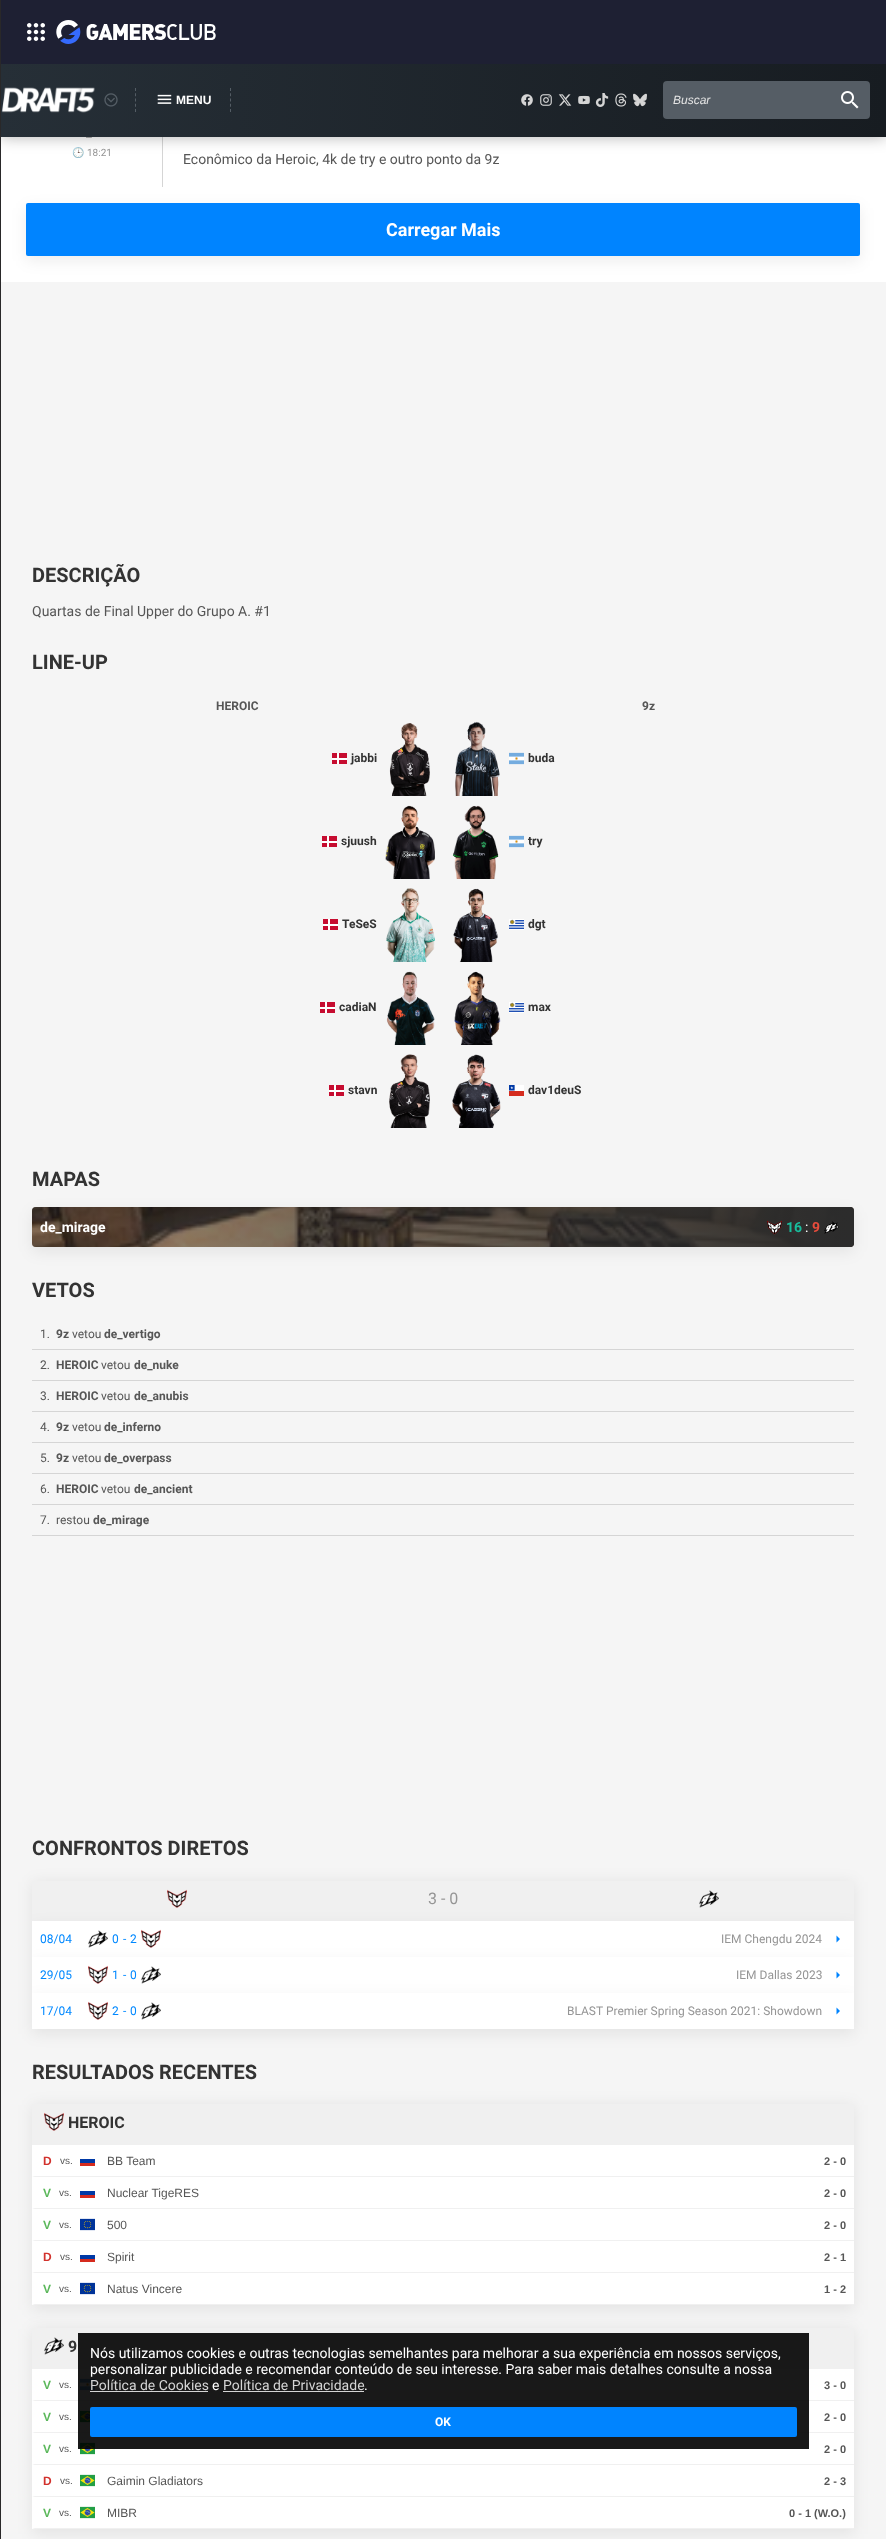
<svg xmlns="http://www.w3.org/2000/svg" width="886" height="2539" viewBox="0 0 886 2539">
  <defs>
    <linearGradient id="g1" gradientUnits="userSpaceOnUse" x1="0" y1="100" x2="886" y2="100"><stop offset="0" stop-color="#262f37"/><stop offset="1" stop-color="#171c21"/></linearGradient>
    <linearGradient id="g2" gradientUnits="userSpaceOnUse" x1="32" y1="1227" x2="854" y2="1227"><stop offset="0.1" stop-color="#2c2c2c" stop-opacity="0.5"/><stop offset="1" stop-color="#2c2c2c"/></linearGradient>
  </defs>
  <rect width="100%" height="100%" fill="#fff"/>
  <path d="M162 137h1v50H162z" fill="#d5d5d5"/>
  <path d="M0 63h886v74H0z" fill="#0000004d" filter="blur(7.5px)"/>
  <path d="M1 0h885v64H1z" fill="#1e2033"/>
  <path d="M0 0h1v2539H0z" fill="#292829"/>
  <image x="27" y="23" width="18" height="18" href="img/1.png"/>
  <image x="56" y="20" width="160" height="24" href="img/2.png"/>
  <path d="M1 64h885v73H1z" fill="url(#g1)"/>
  <image x="1" y="87" width="94" height="26" href="img/3.png"/>
  <image x="104" y="93" width="14" height="14" href="img/4.png"/>
  <path d="M230.5 88V112" fill="none" stroke="#545d65" stroke-dasharray="3 2.25"/>
  <path d="M135.5 88V112" fill="none" stroke="#545d65" stroke-dasharray="3 2.25"/>
  <image x="157" y="94" width="15" height="10" href="img/5.png"/>
  <image x="521" y="94" width="12" height="12" href="img/6.png"/>
  <image x="540" y="94" width="12" height="12" href="img/7.png"/>
  <image x="558" y="94" width="14" height="12" href="img/8.png"/>
  <image x="578" y="95" width="12" height="10" href="img/9.png"/>
  <image x="595" y="93" width="14" height="14" href="img/10.png"/>
  <image x="615" y="93" width="12" height="14" href="img/11.png"/>
  <image x="633" y="93" width="14" height="14" href="img/12.png"/>
  <rect x="663" y="81" width="207" height="38" rx="4" fill="#555d65"/>
  <image x="841" y="91" width="18" height="18" href="img/13.png"/>
  <rect x="26" y="208" width="834" height="53" rx="2" fill="#00000012" filter="blur(7.5px)"/>
  <rect x="26" y="203" width="834" height="53" rx="2" fill="#0084ff"/>
  <path d="M1 282h885v2257H1z" fill="#f5f5f5"/>
  <path d="M332 753h15v11H332z" fill="#c60c30"/>
  <path d="M337 753h2v11H337z" fill="#fff"/>
  <path d="M332 758h15v2H332z" fill="#fff"/>
  <image x="389" y="723" width="41" height="73" href="img/14.png"/>
  <path d="M322 836h15v11H322z" fill="#c60c30"/>
  <path d="M327 836h2v11H327z" fill="#fff"/>
  <path d="M322 841h15v2H322z" fill="#fff"/>
  <image x="385" y="805" width="50" height="74" href="img/15.png"/>
  <path d="M323 919h15v11H323z" fill="#c60c30"/>
  <path d="M328 919h2v11H328z" fill="#fff"/>
  <path d="M323 924h15v2H323z" fill="#fff"/>
  <image x="386" y="888" width="49" height="74" href="img/16.png"/>
  <path d="M320 1002h15v11H320z" fill="#c60c30"/>
  <path d="M325 1002h2v11H325z" fill="#fff"/>
  <path d="M320 1007h15v2H320z" fill="#fff"/>
  <image x="386" y="971" width="49" height="74" href="img/17.png"/>
  <path d="M329 1085h15v11H329z" fill="#c60c30"/>
  <path d="M334 1085h2v11H334z" fill="#fff"/>
  <path d="M329 1090h15v2H329z" fill="#fff"/>
  <image x="389" y="1054" width="41" height="74" href="img/18.png"/>
  <image x="455" y="721" width="45" height="75" href="img/19.png"/>
  <image x="509" y="752" width="15" height="13" href="img/20.png"/>
  <image x="452" y="805" width="47" height="74" href="img/21.png"/>
  <image x="509" y="835" width="15" height="13" href="img/20.png"/>
  <image x="453" y="888" width="45" height="74" href="img/22.png"/>
  <image x="509" y="919" width="15" height="11" href="img/23.png"/>
  <image x="454" y="971" width="47" height="74" href="img/24.png"/>
  <image x="509" y="1002" width="15" height="11" href="img/23.png"/>
  <image x="452" y="1054" width="49" height="74" href="img/25.png"/>
  <image x="509" y="1085" width="15" height="11" href="img/26.png"/>
  <rect x="32" y="1212" width="822" height="40" rx="4" fill="#00000012" filter="blur(7.5px)"/>
  <image x="32" y="1207" width="822" height="40" href="img/27.png"/>
  <rect x="32" y="1207" width="822" height="40" rx="4" fill="url(#g2)"/>
  <image x="767" y="1220" width="15" height="15" href="img/28.png"/>
  <image x="824" y="1221" width="15" height="13" href="img/29.png"/>
  <path d="M32 1349h822v1H32z" fill="#d5d5d5"/>
  <path d="M32 1380h822v1H32z" fill="#d5d5d5"/>
  <path d="M32 1411h822v1H32z" fill="#d5d5d5"/>
  <path d="M32 1442h822v1H32z" fill="#d5d5d5"/>
  <path d="M32 1473h822v1H32z" fill="#d5d5d5"/>
  <path d="M32 1504h822v1H32z" fill="#d5d5d5"/>
  <path d="M32 1535h822v1H32z" fill="#d5d5d5"/>
  <path d="M32 1882h822v44H32z" fill="#00000012" filter="blur(7.5px)"/>
  <path d="M32 1881h822v40H32z" fill="#f0f0f0"/>
  <path d="M32 1926h822v36H32z" fill="#00000012" filter="blur(7.5px)"/>
  <image x="167" y="1889" width="20" height="19" href="img/30.png"/>
  <image x="699" y="1890" width="20" height="18" href="img/31.png"/>
  <path d="M32 1921h822v36H32z" fill="#fff"/>
  <path d="M32 1962h822v36H32z" fill="#00000012" filter="blur(7.5px)"/>
  <image x="88" y="1930" width="20" height="18" href="img/32.png"/>
  <image x="141" y="1929" width="20" height="19" href="img/33.png"/>
  <path d="M32 1957h822v36H32z" fill="#fff"/>
  <path d="M32 1998h822v36H32z" fill="#00000012" filter="blur(7.5px)"/>
  <path d="M836.5 1942.5L840 1939L836.5 1935.5ZM836.5 1978.5L840 1975L836.5 1971.5Z" fill="#0084ff"/>
  <image x="88" y="1965" width="20" height="19" href="img/33.png"/>
  <image x="141" y="1966" width="20" height="18" href="img/32.png"/>
  <path d="M32 1993h822v36H32z" fill="#fff"/>
  <image x="88" y="2001" width="20" height="19" href="img/33.png"/>
  <image x="141" y="2002" width="20" height="18" href="img/32.png"/>
  <path d="M836.5 2014.5L840 2011L836.5 2007.5Z" fill="#0084ff"/>
  <path d="M32 2105h822v205H32z" fill="#00000012" filter="blur(7.5px)"/>
  <path d="M32 2145h822v160H32z" fill="#fff"/>
  <path d="M32 2104h822v41H32z" fill="#f0f0f0"/>
  <image x="44" y="2112" width="20" height="19" href="img/34.png"/>
  <path d="M854 2177H32L35 2176H854Z" fill="#f0f0f0"/>
  <path d="M80 2159h15v4H80z" fill="#0039a6"/>
  <path d="M80 2163h15v3H80z" fill="#d52b1e"/>
  <path d="M854 2209H32L35 2208H854Z" fill="#f0f0f0"/>
  <path d="M80 2191h15v4H80z" fill="#0039a6"/>
  <path d="M80 2195h15v3H80z" fill="#d52b1e"/>
  <path d="M854 2241H32L35 2240H854Z" fill="#f0f0f0"/>
  <image x="80" y="2218" width="15" height="13" href="img/35.png"/>
  <path d="M854 2273H32L35 2272H854Z" fill="#f0f0f0"/>
  <path d="M80 2255h15v4H80z" fill="#0039a6"/>
  <path d="M80 2259h15v3H80z" fill="#d52b1e"/>
  <path d="M854 2305H32L35 2304H854Z" fill="#f0f0f0"/>
  <image x="80" y="2282" width="15" height="13" href="img/35.png"/>
  <path d="M32 2329h822v205H32z" fill="#00000012" filter="blur(7.5px)"/>
  <path d="M32 2369h822v160H32z" fill="#fff"/>
  <path d="M32 2328h822v41H32z" fill="#f0f0f0"/>
  <image x="44" y="2337" width="20" height="18" href="img/36.png"/>
  <path d="M854 2401H32L35 2400H854Z" fill="#f0f0f0"/>
  <image x="80" y="2378" width="15" height="13" href="img/37.png"/>
  <path d="M854 2433H32L35 2432H854Z" fill="#f0f0f0"/>
  <image x="80" y="2410" width="10" height="13" href="img/38.png"/>
  <path d="M854 2465H32L35 2464H854Z" fill="#f0f0f0"/>
  <image x="80" y="2442" width="15" height="13" href="img/39.png"/>
  <path d="M854 2497H32L35 2496H854Z" fill="#f0f0f0"/>
  <image x="80" y="2474" width="15" height="13" href="img/39.png"/>
  <path d="M854 2529H32L35 2528H854Z" fill="#f0f0f0"/>
  <image x="80" y="2506" width="15" height="13" href="img/39.png"/>
  <path d="M78 2333h731v116H78z" fill="#000000e6"/>
  <path d="M90 2391h118v1H90z" fill="#d5d5d5"/>
  <path d="M223 2391h141v1H223z" fill="#d5d5d5"/>
  <rect x="90" y="2407" width="707" height="30" rx="2" fill="#0084ff"/>
  <text x="176" y="104" font-family="Liberation Sans" font-size="12" font-weight="bold" fill="#fff">MENU</text>
  <text x="673" y="104" font-family="Liberation Sans" font-size="12" font-style="italic" fill="#e5e5e5">Buscar</text>
  <text x="86" y="137" font-family="Roboto" font-size="13" fill="#959595">_</text>
  <text x="72" y="156" font-family="Noto Color Emoji" font-size="10" fill="#959595">🕒</text>
  <text x="87" y="156" font-family="Roboto" font-size="10" fill="#959595">18:21</text>
  <text x="183" y="164" font-family="Roboto" font-size="14" fill="#565656">Econômico da Heroic, 4k de try e outro ponto da 9z</text>
  <text x="386" y="236" font-family="Roboto" font-size="18" font-weight="bold" fill="#fff">Carregar Mais</text>
  <text x="32" y="582" font-family="Roboto" font-size="20" font-weight="bold" fill="#333">DESCRIÇÃO</text>
  <text x="32" y="616" font-family="Roboto" font-size="14" fill="#565656">Quartas de Final Upper do Grupo A. #1</text>
  <text x="32" y="669" font-family="Roboto" font-size="20" font-weight="bold" fill="#333">LINE-UP</text>
  <text x="216" y="710" font-family="Roboto" font-size="12" font-weight="bold" fill="#565656">HEROIC</text>
  <g font-family="Roboto" font-size="12" font-weight="bold" fill="#333">
    <text x="351" y="762">jabbi</text>
    <text x="341" y="845">sjuush</text>
    <text x="342" y="928">TeSeS</text>
    <text x="339" y="1011">cadiaN</text>
    <text x="348" y="1094">stavn</text>
  </g>
  <text x="642" y="710" font-family="Roboto" font-size="12" font-weight="bold" fill="#565656">9z</text>
  <g font-family="Roboto" font-size="12" font-weight="bold" fill="#333">
    <text x="528" y="762">buda</text>
    <text x="528" y="845">try</text>
    <text x="528" y="928">dgt</text>
    <text x="528" y="1011">max</text>
    <text x="528" y="1094">dav1deuS</text>
  </g>
  <text x="32" y="1186" font-family="Roboto" font-size="20" font-weight="bold" fill="#333">MAPAS</text>
  <text x="40" y="1232" font-family="Roboto" font-size="14" font-weight="bold" fill="#fff">de_mirage</text>
  <text x="786" y="1232" font-family="Roboto" font-size="14" font-weight="bold" fill="#18bc9c">16</text>
  <text x="805" y="1232" font-family="Roboto" font-size="14" fill="#fff">:</text>
  <text x="812" y="1232" font-family="Roboto" font-size="14" font-weight="bold" fill="#e74c3c">9</text>
  <text x="32" y="1297" font-family="Roboto" font-size="20" font-weight="bold" fill="#333">VETOS</text>
  <text x="40" y="1338" font-family="Roboto" font-size="12" fill="#565656">1.</text>
  <text x="56" y="1338" font-family="Roboto" font-size="12" font-weight="bold" fill="#565656">9z</text>
  <text x="72" y="1338" font-family="Roboto" font-size="12" fill="#565656">vetou</text>
  <text x="104" y="1338" font-family="Roboto" font-size="12" font-weight="bold" fill="#565656">de_vertigo</text>
  <text x="40" y="1369" font-family="Roboto" font-size="12" fill="#565656">2.</text>
  <text x="56" y="1369" font-family="Roboto" font-size="12" font-weight="bold" fill="#565656">HEROIC</text>
  <text x="101" y="1369" font-family="Roboto" font-size="12" fill="#565656">vetou</text>
  <text x="134" y="1369" font-family="Roboto" font-size="12" font-weight="bold" fill="#565656">de_nuke</text>
  <text x="40" y="1400" font-family="Roboto" font-size="12" fill="#565656">3.</text>
  <text x="56" y="1400" font-family="Roboto" font-size="12" font-weight="bold" fill="#565656">HEROIC</text>
  <text x="101" y="1400" font-family="Roboto" font-size="12" fill="#565656">vetou</text>
  <text x="134" y="1400" font-family="Roboto" font-size="12" font-weight="bold" fill="#565656">de_anubis</text>
  <text x="40" y="1431" font-family="Roboto" font-size="12" fill="#565656">4.</text>
  <text x="56" y="1431" font-family="Roboto" font-size="12" font-weight="bold" fill="#565656">9z</text>
  <text x="72" y="1431" font-family="Roboto" font-size="12" fill="#565656">vetou</text>
  <text x="104" y="1431" font-family="Roboto" font-size="12" font-weight="bold" fill="#565656">de_inferno</text>
  <text x="40" y="1462" font-family="Roboto" font-size="12" fill="#565656">5.</text>
  <text x="56" y="1462" font-family="Roboto" font-size="12" font-weight="bold" fill="#565656">9z</text>
  <text x="72" y="1462" font-family="Roboto" font-size="12" fill="#565656">vetou</text>
  <text x="104" y="1462" font-family="Roboto" font-size="12" font-weight="bold" fill="#565656">de_overpass</text>
  <text x="40" y="1493" font-family="Roboto" font-size="12" fill="#565656">6.</text>
  <text x="56" y="1493" font-family="Roboto" font-size="12" font-weight="bold" fill="#565656">HEROIC</text>
  <text x="101" y="1493" font-family="Roboto" font-size="12" fill="#565656">vetou</text>
  <text x="134" y="1493" font-family="Roboto" font-size="12" font-weight="bold" fill="#565656">de_ancient</text>
  <g font-family="Roboto" font-size="12" fill="#565656">
    <text x="40" y="1524">7.</text>
    <text x="56" y="1524">restou</text>
  </g>
  <text x="93" y="1524" font-family="Roboto" font-size="12" font-weight="bold" fill="#565656">de_mirage</text>
  <text x="32" y="1855" font-family="Roboto" font-size="20" font-weight="bold" fill="#333">CONFRONTOS DIRETOS</text>
  <text x="428" y="1904" font-family="Roboto" font-size="16" fill="#959595">3 - 0</text>
  <g font-family="Roboto" font-size="12" fill="#08f">
    <text x="40" y="1943">08/04</text>
    <text x="112" y="1943">0</text>
    <text x="123" y="1943">-</text>
    <text x="130" y="1943">2</text>
  </g>
  <text x="721" y="1943" font-family="Roboto" font-size="12" fill="#959595">IEM Chengdu 2024</text>
  <g font-family="Roboto" font-size="12" fill="#08f">
    <text x="40" y="1979">29/05</text>
    <text x="112" y="1979">1</text>
    <text x="123" y="1979">-</text>
    <text x="130" y="1979">0</text>
  </g>
  <text x="736" y="1979" font-family="Roboto" font-size="12" fill="#959595">IEM Dallas 2023</text>
  <g font-family="Roboto" font-size="12" fill="#08f">
    <text x="40" y="2015">17/04</text>
    <text x="112" y="2015">2</text>
    <text x="123" y="2015">-</text>
    <text x="130" y="2015">0</text>
  </g>
  <text x="567" y="2015" font-family="Roboto" font-size="12" fill="#959595">BLAST Premier Spring Season 2021: Showdown</text>
  <text x="32" y="2079" font-family="Roboto" font-size="20" font-weight="bold" fill="#333">RESULTADOS RECENTES</text>
  <text x="68" y="2128" font-family="Roboto" font-size="16" font-weight="bold" fill="#333">HEROIC</text>
  <text x="43" y="2165" font-family="Liberation Sans" font-size="12" font-weight="bold" fill="#d2322d">D</text>
  <text x="60" y="2164" font-family="Liberation Sans" font-size="10" fill="#565656">vs.</text>
  <text x="107" y="2165" font-family="Liberation Sans" font-size="12" fill="#565656">BB Team</text>
  <text x="824" y="2165" font-family="Liberation Sans" font-size="11" font-weight="bold" fill="#565656">2 - 0</text>
  <text x="43" y="2197" font-family="Liberation Sans" font-size="12" font-weight="bold" fill="#5cb85c">V</text>
  <text x="59" y="2196" font-family="Liberation Sans" font-size="10" fill="#565656">vs.</text>
  <text x="107" y="2197" font-family="Liberation Sans" font-size="12" fill="#565656">Nuclear TigeRES</text>
  <text x="824" y="2197" font-family="Liberation Sans" font-size="11" font-weight="bold" fill="#565656">2 - 0</text>
  <text x="43" y="2229" font-family="Liberation Sans" font-size="12" font-weight="bold" fill="#5cb85c">V</text>
  <text x="59" y="2228" font-family="Liberation Sans" font-size="10" fill="#565656">vs.</text>
  <text x="107" y="2229" font-family="Liberation Sans" font-size="12" fill="#565656">500</text>
  <text x="824" y="2229" font-family="Liberation Sans" font-size="11" font-weight="bold" fill="#565656">2 - 0</text>
  <text x="43" y="2261" font-family="Liberation Sans" font-size="12" font-weight="bold" fill="#d2322d">D</text>
  <text x="60" y="2260" font-family="Liberation Sans" font-size="10" fill="#565656">vs.</text>
  <text x="107" y="2261" font-family="Liberation Sans" font-size="12" fill="#565656">Spirit</text>
  <text x="824" y="2261" font-family="Liberation Sans" font-size="11" font-weight="bold" fill="#565656">2 - 1</text>
  <text x="43" y="2293" font-family="Liberation Sans" font-size="12" font-weight="bold" fill="#5cb85c">V</text>
  <text x="59" y="2292" font-family="Liberation Sans" font-size="10" fill="#565656">vs.</text>
  <text x="107" y="2293" font-family="Liberation Sans" font-size="12" fill="#565656">Natus Vincere</text>
  <text x="824" y="2293" font-family="Liberation Sans" font-size="11" font-weight="bold" fill="#565656">1 - 2</text>
  <text x="68" y="2352" font-family="Roboto" font-size="16" font-weight="bold" fill="#333">9</text>
  <text x="43" y="2389" font-family="Liberation Sans" font-size="12" font-weight="bold" fill="#5cb85c">V</text>
  <text x="59" y="2388" font-family="Liberation Sans" font-size="10" fill="#565656">vs.</text>
  <text x="824" y="2389" font-family="Liberation Sans" font-size="11" font-weight="bold" fill="#565656">3 - 0</text>
  <text x="43" y="2421" font-family="Liberation Sans" font-size="12" font-weight="bold" fill="#5cb85c">V</text>
  <text x="59" y="2420" font-family="Liberation Sans" font-size="10" fill="#565656">vs.</text>
  <text x="824" y="2421" font-family="Liberation Sans" font-size="11" font-weight="bold" fill="#565656">2 - 0</text>
  <text x="43" y="2453" font-family="Liberation Sans" font-size="12" font-weight="bold" fill="#5cb85c">V</text>
  <text x="59" y="2452" font-family="Liberation Sans" font-size="10" fill="#565656">vs.</text>
  <text x="824" y="2453" font-family="Liberation Sans" font-size="11" font-weight="bold" fill="#565656">2 - 0</text>
  <text x="43" y="2485" font-family="Liberation Sans" font-size="12" font-weight="bold" fill="#d2322d">D</text>
  <text x="60" y="2484" font-family="Liberation Sans" font-size="10" fill="#565656">vs.</text>
  <text x="107" y="2485" font-family="Liberation Sans" font-size="12" fill="#565656">Gaimin Gladiators</text>
  <text x="824" y="2485" font-family="Liberation Sans" font-size="11" font-weight="bold" fill="#565656">2 - 3</text>
  <text x="43" y="2517" font-family="Liberation Sans" font-size="12" font-weight="bold" fill="#5cb85c">V</text>
  <text x="59" y="2516" font-family="Liberation Sans" font-size="10" fill="#565656">vs.</text>
  <text x="107" y="2517" font-family="Liberation Sans" font-size="12" fill="#565656">MIBR</text>
  <text x="789" y="2517" font-family="Liberation Sans" font-size="11" font-weight="bold" fill="#565656">0 - 1 (W.O.)</text>
  <g font-family="Roboto" font-size="14" fill="#fff">
    <text x="90" y="2358">Nós utilizamos cookies e outras tecnologias semelhantes para melhorar a sua experiência em nossos serviços,</text>
    <text x="90" y="2374">personalizar publicidade e recomendar conteúdo de seu interesse. Para saber mais detalhes consulte a nossa</text>
  </g>
  <text x="90" y="2390" font-family="Roboto" font-size="14" fill="#d5d5d5">Política de Cookies</text>
  <text x="212" y="2390" font-family="Roboto" font-size="14" fill="#fff">e</text>
  <text x="223" y="2390" font-family="Roboto" font-size="14" fill="#d5d5d5">Política de Privacidade</text>
  <text x="364" y="2390" font-family="Roboto" font-size="14" fill="#fff">.</text>
  <text x="435" y="2426" font-family="Roboto" font-size="12" font-weight="bold" fill="#fff">OK</text>
</svg>
